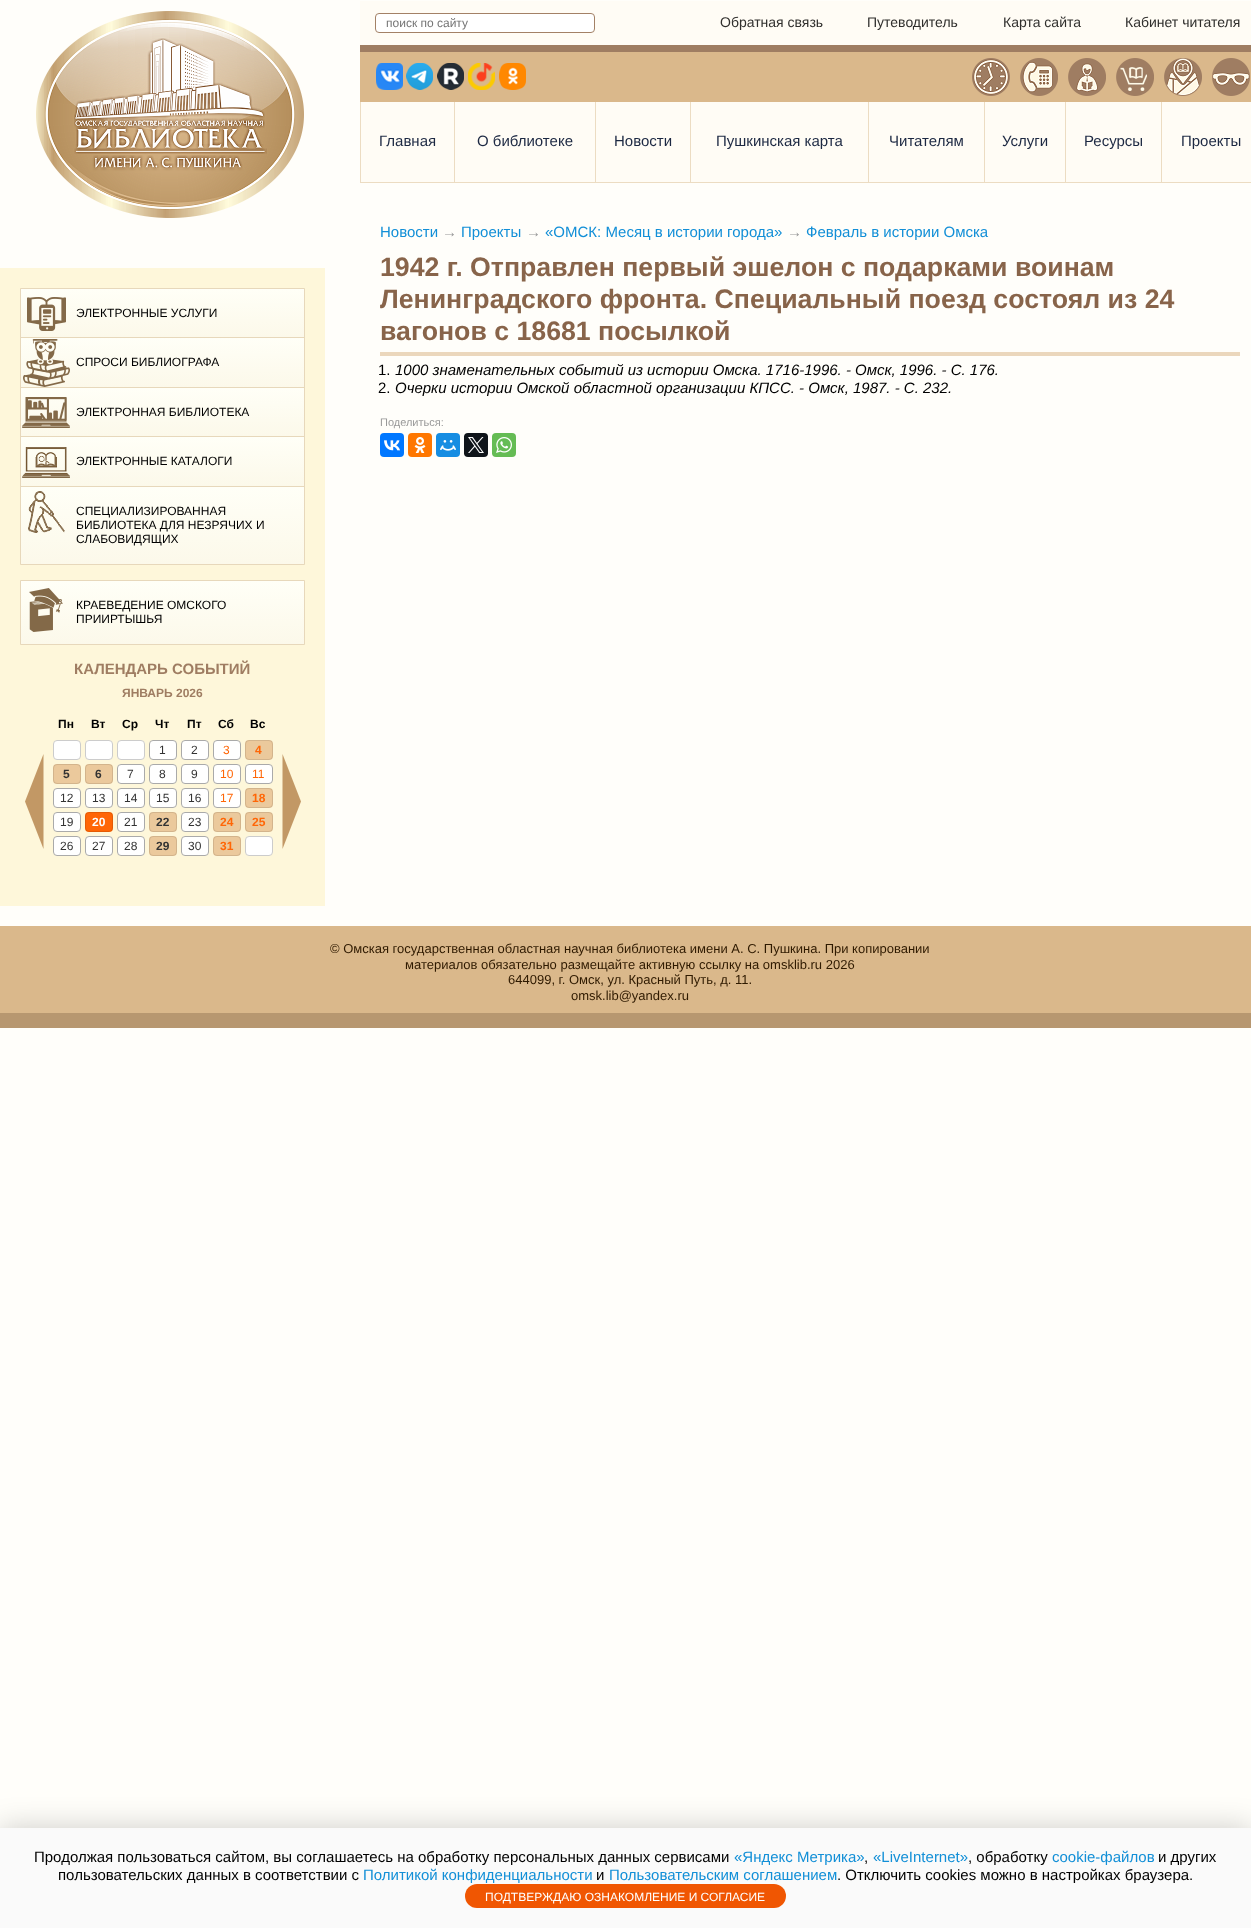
<svg xmlns="http://www.w3.org/2000/svg" width="1251" height="1928" viewBox="0 0 1251 1928">
  <defs>
    <linearGradient id="g1" gradientUnits="userSpaceOnUse" x1="163" y1="289" x2="163" y2="337"><stop offset="0" stop-color="#fffff7"/><stop offset="1" stop-color="#fcf9ea"/></linearGradient>
    <linearGradient id="g2" gradientUnits="userSpaceOnUse" x1="163" y1="338" x2="163" y2="387"><stop offset="0" stop-color="#fffff7"/><stop offset="1" stop-color="#fcf9ea"/></linearGradient>
    <linearGradient id="g3" gradientUnits="userSpaceOnUse" x1="163" y1="388" x2="163" y2="436"><stop offset="0" stop-color="#fffff7"/><stop offset="1" stop-color="#fcf9ea"/></linearGradient>
    <linearGradient id="g4" gradientUnits="userSpaceOnUse" x1="163" y1="437" x2="163" y2="486"><stop offset="0" stop-color="#fffff7"/><stop offset="1" stop-color="#fcf9ea"/></linearGradient>
    <linearGradient id="g5" gradientUnits="userSpaceOnUse" x1="163" y1="487" x2="163" y2="564"><stop offset="0" stop-color="#fffff7"/><stop offset="1" stop-color="#fcf9ea"/></linearGradient>
    <linearGradient id="g6" gradientUnits="userSpaceOnUse" x1="163" y1="581" x2="163" y2="644"><stop offset="0" stop-color="#fffff7"/><stop offset="1" stop-color="#fcf9ea"/></linearGradient>
  </defs>
  <rect width="100%" height="100%" fill="#fffefa"/>
  <image x="36" y="11" width="268" height="207" href="img/1.png"/>
  <path d="M360 1h891v181H360z" fill="#fffcf5"/>
  <rect x="375.5" y="13.5" width="219" height="19" rx="3.5" fill="#fff" stroke="#a38166"/>
  <path d="M360 52h891v50H360z" fill="#dab88b"/>
  <path d="M360 45h891v7H360z" fill="#9f7d62"/>
  <image x="376" y="63" width="27" height="27" href="img/2.png"/>
  <image x="406" y="63" width="27" height="27" href="img/3.png"/>
  <image x="437" y="63" width="27" height="27" href="img/4.png"/>
  <image x="468" y="63" width="27" height="27" href="img/5.png"/>
  <image x="499" y="63" width="27" height="27" href="img/6.png"/>
  <image x="972" y="58" width="38" height="38" href="img/7.png"/>
  <image x="1020" y="58" width="38" height="38" href="img/8.png"/>
  <image x="1068" y="58" width="38" height="38" href="img/9.png"/>
  <image x="1116" y="58" width="38" height="38" href="img/10.png"/>
  <image x="1164" y="58" width="38" height="38" href="img/11.png"/>
  <image x="1212" y="58" width="38" height="38" href="img/12.png"/>
  <path d="M360 182h891v1H360z" fill="#ecdcc2"/>
  <path d="M360 102h1v81H360z" fill="#ecdcc2"/>
  <path d="M454 102h1v80H454z" fill="#ecdcc2"/>
  <path d="M595 102h1v80H595z" fill="#ecdcc2"/>
  <path d="M690 102h1v80H690z" fill="#ecdcc2"/>
  <path d="M868 102h1v80H868z" fill="#ecdcc2"/>
  <path d="M984 102h1v80H984z" fill="#ecdcc2"/>
  <path d="M1065 102h1v80H1065z" fill="#ecdcc2"/>
  <path d="M1161 102h1v80H1161z" fill="#ecdcc2"/>
  <path d="M0 268h325v638H0z" fill="#fef7da"/>
  <path d="M20.5 288.5h284v276H20.5z" fill="none" stroke="#e7d8bb"/>
  <path d="M21 289h283v48H21z" fill="url(#g1)"/>
  <path d="M21 337h283v1H21z" fill="#e7d8bb"/>
  <image x="27" y="297" width="39" height="34" href="img/13.png"/>
  <path d="M21 338h283v49H21z" fill="url(#g2)"/>
  <path d="M21 387h283v1H21z" fill="#e7d8bb"/>
  <image x="23" y="339" width="47" height="48" href="img/14.png"/>
  <path d="M21 388h283v48H21z" fill="url(#g3)"/>
  <path d="M21 436h283v1H21z" fill="#e7d8bb"/>
  <image x="22" y="397" width="48" height="31" href="img/15.png"/>
  <path d="M21 437h283v49H21z" fill="url(#g4)"/>
  <path d="M21 486h283v1H21z" fill="#e7d8bb"/>
  <image x="22" y="447" width="48" height="31" href="img/16.png"/>
  <path d="M21 487h283v77H21z" fill="url(#g5)"/>
  <image x="28" y="491" width="37" height="42" href="img/17.png"/>
  <path d="M20.5 580.5h284v64H20.5z" fill="none" stroke="#e7d8bb"/>
  <path d="M21 581h283v63H21z" fill="url(#g6)"/>
  <image x="29" y="588" width="34" height="44" href="img/18.png"/>
  <rect x="53.5" y="740.5" width="27" height="19" rx="3.5" fill="#fff" stroke="#ccc"/>
  <rect x="85.5" y="740.5" width="27" height="19" rx="3.5" fill="#fff" stroke="#ccc"/>
  <rect x="117.5" y="740.5" width="27" height="19" rx="3.5" fill="#fff" stroke="#ccc"/>
  <rect x="149.5" y="740.5" width="27" height="19" rx="3.5" fill="#fff" stroke="#aaa"/>
  <rect x="181.5" y="740.5" width="27" height="19" rx="3.5" fill="#fff" stroke="#aaa"/>
  <rect x="213.5" y="740.5" width="27" height="19" rx="3.5" fill="#fff" stroke="#aaa"/>
  <rect x="245" y="740" width="28" height="20" rx="4" fill="#ebc99c"/>
  <rect x="245.5" y="740.5" width="27" height="19" rx="3.5" fill="none" stroke="#0000001a"/>
  <image x="25" y="754" width="19" height="95" href="img/19.png"/>
  <rect x="53" y="764" width="28" height="20" rx="4" fill="#ebc99c"/>
  <rect x="53.5" y="764.5" width="27" height="19" rx="3.5" fill="none" stroke="#0000001a"/>
  <rect x="85" y="764" width="28" height="20" rx="4" fill="#ebc99c"/>
  <rect x="85.5" y="764.5" width="27" height="19" rx="3.5" fill="none" stroke="#0000001a"/>
  <rect x="117.5" y="764.5" width="27" height="19" rx="3.5" fill="#fff" stroke="#aaa"/>
  <rect x="149.5" y="764.5" width="27" height="19" rx="3.5" fill="#fff" stroke="#aaa"/>
  <rect x="181.5" y="764.5" width="27" height="19" rx="3.5" fill="#fff" stroke="#aaa"/>
  <rect x="213.5" y="764.5" width="27" height="19" rx="3.5" fill="#fff" stroke="#aaa"/>
  <rect x="245.5" y="764.5" width="27" height="19" rx="3.5" fill="#fff" stroke="#aaa"/>
  <image x="282" y="754" width="19" height="95" href="img/20.png"/>
  <rect x="53.5" y="788.5" width="27" height="19" rx="3.5" fill="#fff" stroke="#aaa"/>
  <rect x="85.5" y="788.5" width="27" height="19" rx="3.5" fill="#fff" stroke="#aaa"/>
  <rect x="117.5" y="788.5" width="27" height="19" rx="3.5" fill="#fff" stroke="#aaa"/>
  <rect x="149.5" y="788.5" width="27" height="19" rx="3.5" fill="#fff" stroke="#aaa"/>
  <rect x="181.5" y="788.5" width="27" height="19" rx="3.5" fill="#fff" stroke="#aaa"/>
  <rect x="213.5" y="788.5" width="27" height="19" rx="3.5" fill="#fff" stroke="#aaa"/>
  <rect x="245" y="788" width="28" height="20" rx="4" fill="#ebc99c"/>
  <rect x="245.5" y="788.5" width="27" height="19" rx="3.5" fill="none" stroke="#0000001a"/>
  <rect x="53.5" y="812.5" width="27" height="19" rx="3.5" fill="#fff" stroke="#aaa"/>
  <rect x="85" y="812" width="28" height="20" rx="4" fill="#ff6606"/>
  <rect x="85.5" y="812.5" width="27" height="19" rx="3.5" fill="none" stroke="#0000001a"/>
  <rect x="117.5" y="812.5" width="27" height="19" rx="3.5" fill="#fff" stroke="#aaa"/>
  <rect x="149" y="812" width="28" height="20" rx="4" fill="#ebc99c"/>
  <rect x="149.5" y="812.5" width="27" height="19" rx="3.5" fill="none" stroke="#0000001a"/>
  <rect x="181.5" y="812.5" width="27" height="19" rx="3.5" fill="#fff" stroke="#aaa"/>
  <rect x="213" y="812" width="28" height="20" rx="4" fill="#ebc99c"/>
  <rect x="213.5" y="812.5" width="27" height="19" rx="3.5" fill="none" stroke="#0000001a"/>
  <rect x="245" y="812" width="28" height="20" rx="4" fill="#ebc99c"/>
  <rect x="245.5" y="812.5" width="27" height="19" rx="3.5" fill="none" stroke="#0000001a"/>
  <rect x="53.5" y="836.5" width="27" height="19" rx="3.5" fill="#fff" stroke="#aaa"/>
  <rect x="85.5" y="836.5" width="27" height="19" rx="3.5" fill="#fff" stroke="#aaa"/>
  <rect x="117.5" y="836.5" width="27" height="19" rx="3.5" fill="#fff" stroke="#aaa"/>
  <rect x="149" y="836" width="28" height="20" rx="4" fill="#ebc99c"/>
  <rect x="149.5" y="836.5" width="27" height="19" rx="3.5" fill="none" stroke="#0000001a"/>
  <rect x="181.5" y="836.5" width="27" height="19" rx="3.5" fill="#fff" stroke="#aaa"/>
  <rect x="213" y="836" width="28" height="20" rx="4" fill="#ebc99c"/>
  <rect x="213.5" y="836.5" width="27" height="19" rx="3.5" fill="none" stroke="#0000001a"/>
  <rect x="245.5" y="836.5" width="27" height="19" rx="3.5" fill="#fff" stroke="#ccc"/>
  <path d="M380 352h860v4H380z" fill="#ebd7bc"/>
  <rect x="380" y="433" width="24" height="24" rx="4" fill="#07f"/>
  <image x="384" y="440" width="16" height="11" href="img/21.png"/>
  <rect x="408" y="433" width="24" height="24" rx="4" fill="#f70"/>
  <image x="414" y="437" width="12" height="16" href="img/22.png"/>
  <rect x="436" y="433" width="24" height="24" rx="4" fill="#168de2"/>
  <image x="440" y="440" width="16" height="11" href="img/23.png"/>
  <rect x="464" y="433" width="24" height="24" rx="4" fill="#0f1419"/>
  <image x="468" y="437" width="16" height="16" href="img/24.png"/>
  <rect x="492" y="433" width="24" height="24" rx="4" fill="#65bc54"/>
  <image x="496" y="437" width="16" height="16" href="img/25.png"/>
  <path d="M0 926h1251v87H0z" fill="#dab88b"/>
  <path d="M0 1013h1251v15H0z" fill="#b79770"/>
  <path d="M0 1828h1251v100H0z" fill="#00000033" filter="blur(15px)"/>
  <path d="M0 1828h1251v100H0z" fill="#fafafa"/>
  <rect x="465" y="1884" width="321" height="24" rx="12" fill="#f05602"/>
  <text x="386" y="27" font-family="Liberation Sans" font-size="12" fill="#757575">поиск по сайту</text>
  <g font-family="Liberation Sans" font-size="14" fill="#302f2d">
    <text x="720" y="27">Обратная связь</text>
    <text x="867" y="27">Путеводитель</text>
    <text x="1003" y="27">Карта сайта</text>
    <text x="1125" y="27">Кабинет читателя</text>
  </g>
  <g font-family="Liberation Sans" font-size="15" fill="#1c2842">
    <text x="379" y="146">Главная</text>
    <text x="477" y="146">О библиотеке</text>
    <text x="614" y="146">Новости</text>
    <text x="716" y="146">Пушкинская карта</text>
    <text x="889" y="146">Читателям</text>
    <text x="1002" y="146">Услуги</text>
    <text x="1084" y="146">Ресурсы</text>
    <text x="1181" y="146">Проекты</text>
  </g>
  <g font-family="Liberation Sans" font-size="12" fill="#000">
    <text x="76" y="317">ЭЛЕКТРОННЫЕ УСЛУГИ</text>
    <text x="76" y="366">СПРОСИ БИБЛИОГРАФА</text>
    <text x="76" y="416">ЭЛЕКТРОННАЯ БИБЛИОТЕКА</text>
    <text x="76" y="465">ЭЛЕКТРОННЫЕ КАТАЛОГИ</text>
    <text x="76" y="515">СПЕЦИАЛИЗИРОВАННАЯ</text>
    <text x="76" y="529">БИБЛИОТЕКА ДЛЯ НЕЗРЯЧИХ И</text>
    <text x="76" y="543">СЛАБОВИДЯЩИХ</text>
    <text x="76" y="609">КРАЕВЕДЕНИЕ ОМСКОГО</text>
    <text x="76" y="623">ПРИИРТЫШЬЯ</text>
  </g>
  <text x="74" y="674" font-family="Liberation Sans" font-size="15" font-weight="bold" fill="#9f7d62">КАЛЕНДАРЬ СОБЫТИЙ</text>
  <text x="122" y="697" font-family="Liberation Sans" font-size="12" font-weight="bold" fill="#9f7d62">ЯНВАРЬ 2026</text>
  <g font-family="Liberation Sans" font-size="12" font-weight="bold" fill="#000">
    <text x="58" y="728">Пн</text>
    <text x="91" y="728">Вт</text>
    <text x="122" y="728">Ср</text>
    <text x="155" y="728">Чт</text>
    <text x="187" y="728">Пт</text>
    <text x="218" y="728">Сб</text>
    <text x="250" y="728">Вс</text>
  </g>
  <g font-family="Liberation Sans" font-size="12" fill="#333">
    <text x="159" y="754">1</text>
    <text x="191" y="754">2</text>
  </g>
  <text x="223" y="754" font-family="Liberation Sans" font-size="12" fill="#ff6606">3</text>
  <text x="255" y="754" font-family="Liberation Sans" font-size="12" font-weight="bold" fill="#ff6606">4</text>
  <g font-family="Liberation Sans" font-size="12" font-weight="bold" fill="#333">
    <text x="63" y="778">5</text>
    <text x="95" y="778">6</text>
  </g>
  <g font-family="Liberation Sans" font-size="12" fill="#333">
    <text x="127" y="778">7</text>
    <text x="159" y="778">8</text>
    <text x="191" y="778">9</text>
  </g>
  <g font-family="Liberation Sans" font-size="12" fill="#ff6606">
    <text x="220" y="778">10</text>
    <text x="252" y="778">11</text>
  </g>
  <g font-family="Liberation Sans" font-size="12" fill="#333">
    <text x="60" y="802">12</text>
    <text x="92" y="802">13</text>
    <text x="124" y="802">14</text>
    <text x="156" y="802">15</text>
    <text x="188" y="802">16</text>
  </g>
  <text x="220" y="802" font-family="Liberation Sans" font-size="12" fill="#ff6606">17</text>
  <text x="252" y="802" font-family="Liberation Sans" font-size="12" font-weight="bold" fill="#ff6606">18</text>
  <text x="60" y="826" font-family="Liberation Sans" font-size="12" fill="#333">19</text>
  <text x="92" y="826" font-family="Liberation Sans" font-size="12" font-weight="bold" fill="#fff">20</text>
  <text x="124" y="826" font-family="Liberation Sans" font-size="12" fill="#333">21</text>
  <text x="156" y="826" font-family="Liberation Sans" font-size="12" font-weight="bold" fill="#333">22</text>
  <text x="188" y="826" font-family="Liberation Sans" font-size="12" fill="#333">23</text>
  <g font-family="Liberation Sans" font-size="12" font-weight="bold" fill="#ff6606">
    <text x="220" y="826">24</text>
    <text x="252" y="826">25</text>
  </g>
  <g font-family="Liberation Sans" font-size="12" fill="#333">
    <text x="60" y="850">26</text>
    <text x="92" y="850">27</text>
    <text x="124" y="850">28</text>
  </g>
  <text x="156" y="850" font-family="Liberation Sans" font-size="12" font-weight="bold" fill="#333">29</text>
  <text x="188" y="850" font-family="Liberation Sans" font-size="12" fill="#333">30</text>
  <text x="220" y="850" font-family="Liberation Sans" font-size="12" font-weight="bold" fill="#ff6606">31</text>
  <text x="380" y="237" font-family="Liberation Sans" font-size="15" fill="#128fd7">Новости</text>
  <text x="442" y="237" font-family="Liberation Sans" font-size="15" fill="#999">→</text>
  <text x="461" y="237" font-family="Liberation Sans" font-size="15" fill="#128fd7">Проекты</text>
  <text x="526" y="237" font-family="Liberation Sans" font-size="15" fill="#999">→</text>
  <text x="545" y="237" font-family="Liberation Sans" font-size="15" fill="#128fd7">«ОМСК: Месяц в истории города»</text>
  <text x="787" y="237" font-family="Liberation Sans" font-size="15" fill="#999">→</text>
  <text x="806" y="237" font-family="Liberation Sans" font-size="15" fill="#128fd7">Февраль в истории Омска</text>
  <g font-family="Liberation Sans" font-size="26.7" font-weight="bold" fill="#88644a">
    <text x="380" y="276">1942 г. Отправлен первый эшелон с подарками воинам</text>
    <text x="380" y="308">Ленинградского фронта. Специальный поезд состоял из 24</text>
    <text x="380" y="340">вагонов с 18681 посылкой</text>
  </g>
  <text x="378" y="375" font-family="Liberation Sans" font-size="15" fill="#000">1.</text>
  <text x="395" y="375" font-family="Liberation Sans" font-size="15" font-style="italic" fill="#000">1000 знаменательных событий из истории Омска. 1716-1996. - Омск, 1996. - С. 176.</text>
  <text x="378" y="393" font-family="Liberation Sans" font-size="15" fill="#000">2.</text>
  <text x="395" y="393" font-family="Liberation Sans" font-size="15" font-style="italic" fill="#000">Очерки истории Омской областной организации КПСС. - Омск, 1987. - С. 232.</text>
  <text x="380" y="426" font-family="Liberation Sans" font-size="11" fill="#999">Поделиться:</text>
  <g font-family="Liberation Sans" font-size="13" fill="#2f1a00">
    <text x="330" y="953">© Омская государственная областная научная библиотека имени А. С. Пушкина. При копировании</text>
    <text x="405" y="969">материалов обязательно размещайте активную ссылку на omsklib.ru 2026</text>
    <text x="508" y="984">644099, г. Омск, ул. Красный Путь, д. 11.</text>
    <text x="571" y="1000">omsk.lib@yandex.ru</text>
  </g>
  <text x="34" y="1862" font-family="Liberation Sans" font-size="15" fill="#000">Продолжая пользоваться сайтом, вы соглашаетесь на обработку персональных данных сервисами</text>
  <text x="734" y="1862" font-family="Liberation Sans" font-size="15" fill="#128fd7">«Яндекс Метрика»</text>
  <text x="864" y="1862" font-family="Liberation Sans" font-size="15" fill="#000">,</text>
  <text x="873" y="1862" font-family="Liberation Sans" font-size="15" fill="#128fd7">«LiveInternet»</text>
  <text x="968" y="1862" font-family="Liberation Sans" font-size="15" fill="#000">, обработку</text>
  <text x="1052" y="1862" font-family="Liberation Sans" font-size="15" fill="#128fd7">cookie-файлов</text>
  <g font-family="Liberation Sans" font-size="15" fill="#000">
    <text x="1158" y="1862">и других</text>
    <text x="58" y="1880">пользовательских данных в соответствии с</text>
  </g>
  <text x="363" y="1880" font-family="Liberation Sans" font-size="15" fill="#128fd7">Политикой конфиденциальности</text>
  <text x="596" y="1880" font-family="Liberation Sans" font-size="15" fill="#000">и</text>
  <text x="609" y="1880" font-family="Liberation Sans" font-size="15" fill="#128fd7">Пользовательским соглашением</text>
  <text x="837" y="1880" font-family="Liberation Sans" font-size="15" fill="#000">. Отключить cookies можно в настройках браузера.</text>
  <text x="485" y="1901" font-family="Liberation Sans" font-size="12" fill="#fff">ПОДТВЕРЖДАЮ ОЗНАКОМЛЕНИЕ И СОГЛАСИЕ</text>
</svg>
